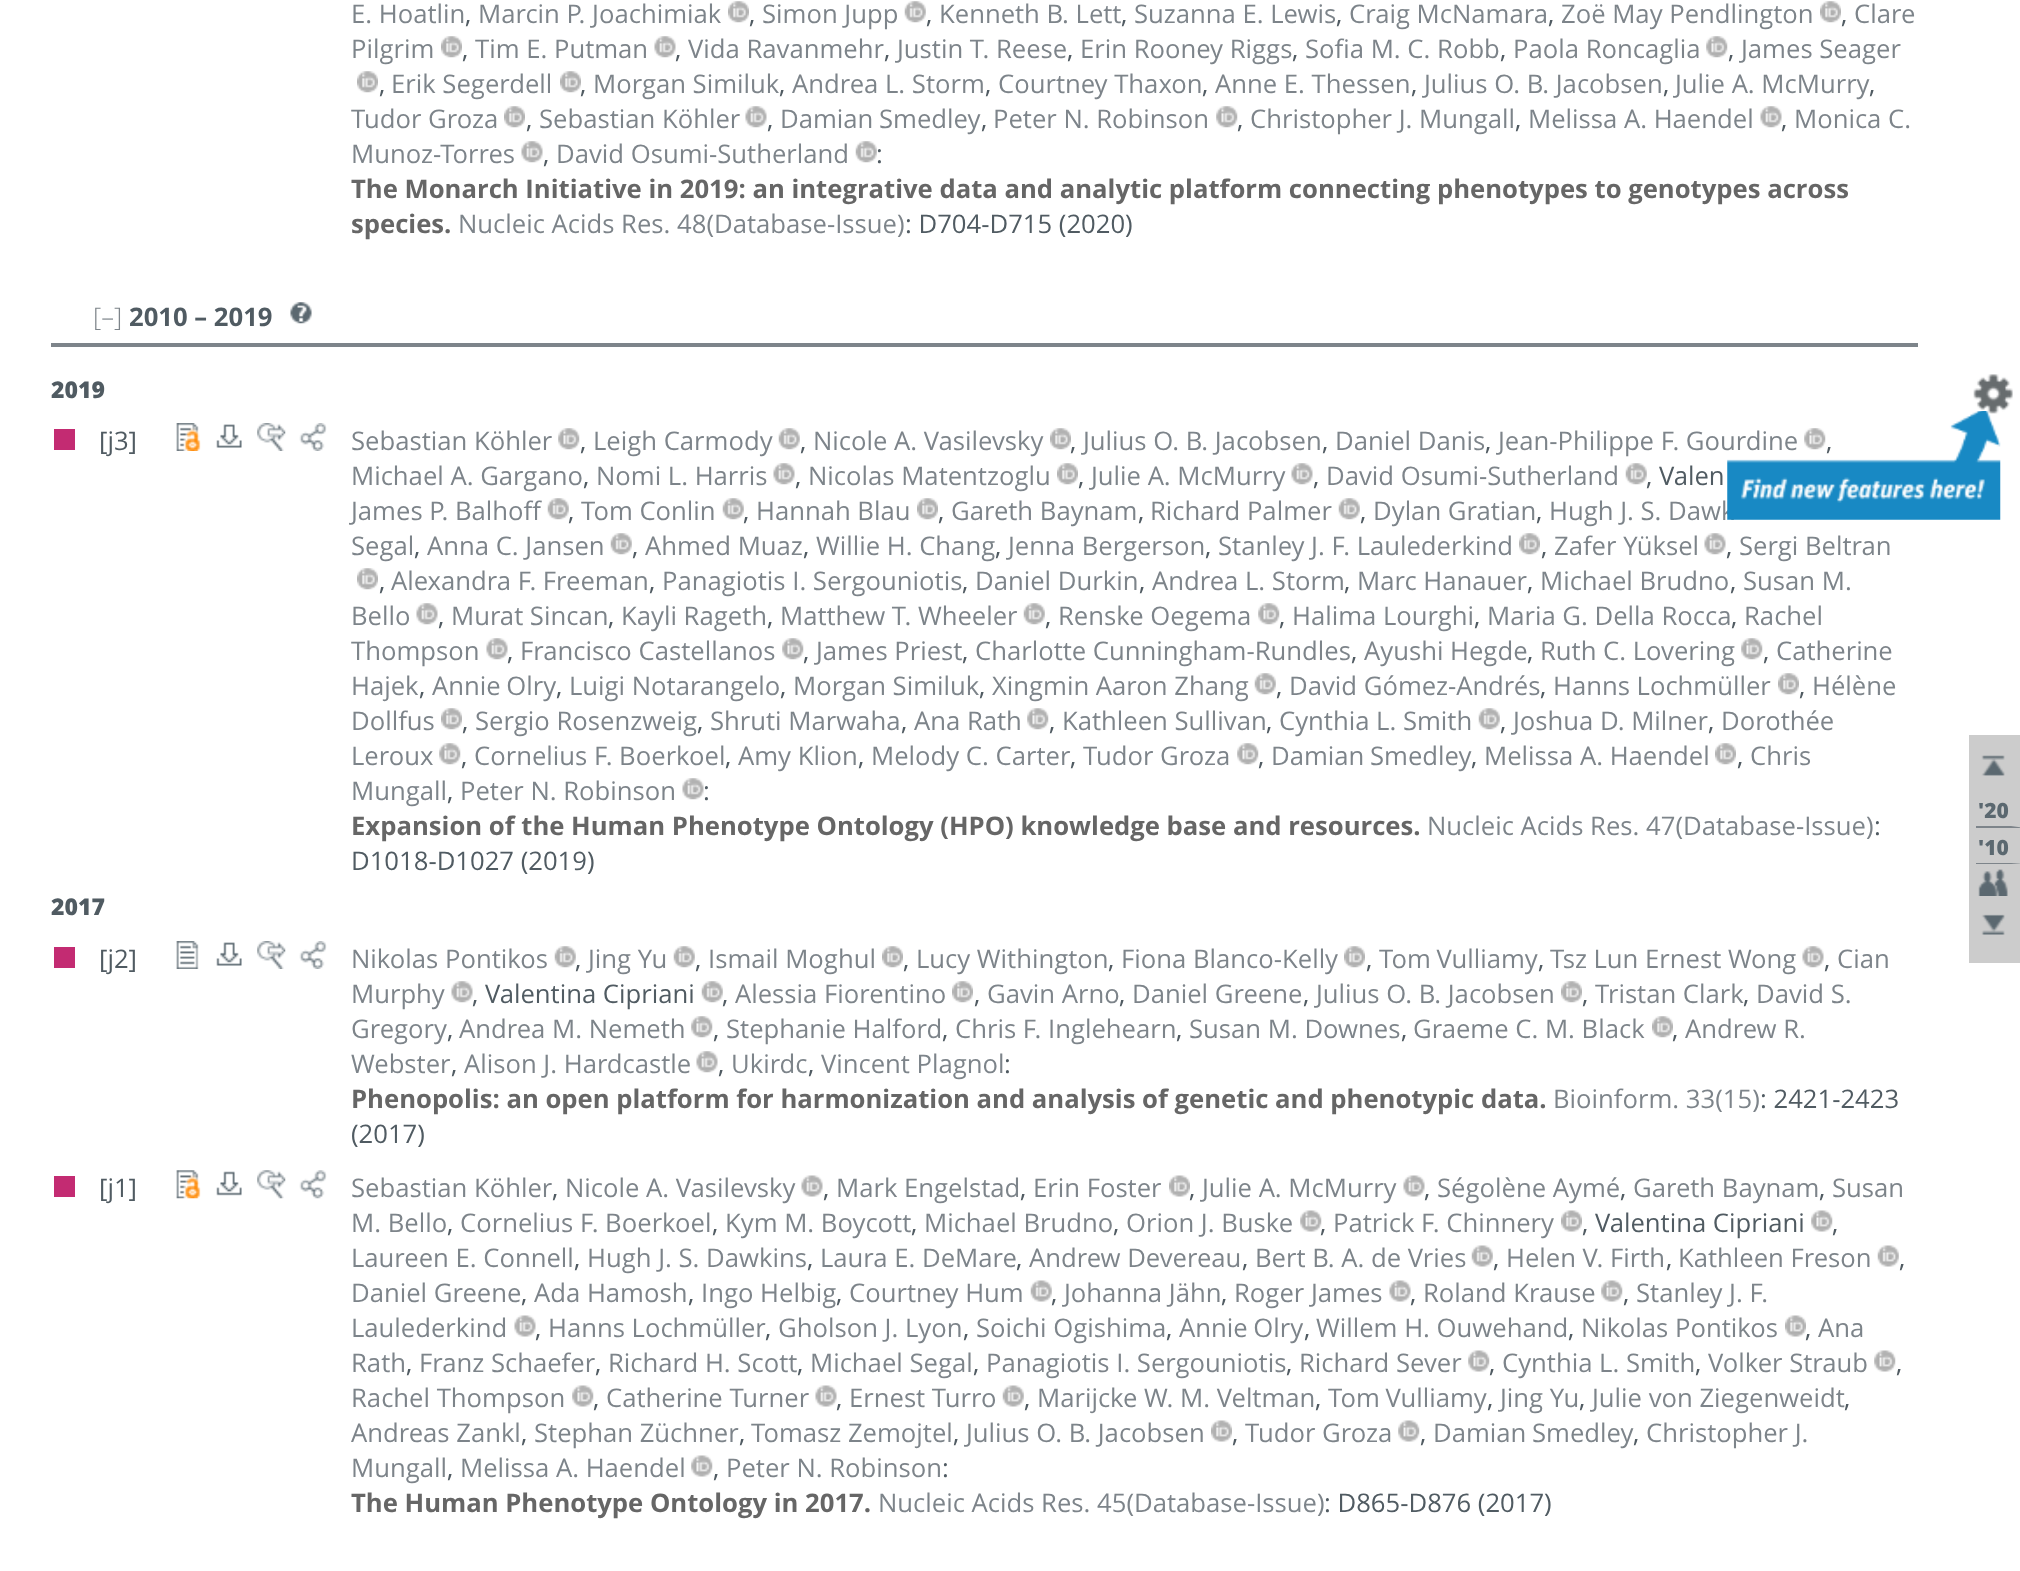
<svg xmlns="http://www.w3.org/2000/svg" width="2020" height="1571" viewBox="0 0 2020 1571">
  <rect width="100%" height="100%" fill="#fff"/>
  <image x="728" y="1" width="21" height="22" href="img/1.png"/>
  <image x="904" y="1" width="22" height="22" href="img/2.png"/>
  <image x="1820" y="1" width="21" height="22" href="img/1.png"/>
  <image x="441" y="36" width="21" height="22" href="img/1.png"/>
  <image x="654" y="36" width="22" height="22" href="img/3.png"/>
  <image x="1706" y="36" width="22" height="22" href="img/4.png"/>
  <image x="357" y="71" width="21" height="22" href="img/1.png"/>
  <image x="560" y="71" width="21" height="22" href="img/5.png"/>
  <image x="504" y="106" width="21" height="22" href="img/5.png"/>
  <image x="745" y="106" width="22" height="22" href="img/6.png"/>
  <image x="1216" y="106" width="22" height="22" href="img/4.png"/>
  <image x="1760" y="106" width="22" height="22" href="img/6.png"/>
  <image x="521" y="141" width="22" height="22" href="img/3.png"/>
  <image x="855" y="141" width="22" height="22" href="img/7.png"/>
  <path d="M51 343h1867v4H51z" fill="#7d848a"/>
  <image x="290" y="302" width="22" height="22" href="img/8.png"/>
  <path d="M54 429h21v21H54z" fill="#c32b72"/>
  <image x="176" y="423" width="25" height="28" href="img/9.png"/>
  <image x="216" y="424" width="26" height="24" href="img/10.png"/>
  <image x="257" y="423" width="29" height="28" href="img/11.png"/>
  <image x="299" y="423" width="28" height="28" href="img/12.png"/>
  <image x="558" y="428" width="22" height="22" href="img/4.png"/>
  <image x="778" y="428" width="22" height="22" href="img/2.png"/>
  <image x="1050" y="428" width="21" height="22" href="img/5.png"/>
  <image x="1804" y="428" width="22" height="22" href="img/4.png"/>
  <image x="773" y="463" width="22" height="22" href="img/13.png"/>
  <image x="1057" y="463" width="21" height="22" href="img/14.png"/>
  <image x="1291" y="463" width="22" height="22" href="img/15.png"/>
  <image x="1625" y="463" width="22" height="22" href="img/16.png"/>
  <image x="547" y="498" width="22" height="22" href="img/17.png"/>
  <image x="722" y="498" width="22" height="22" href="img/18.png"/>
  <image x="917" y="498" width="21" height="22" href="img/19.png"/>
  <image x="1338" y="498" width="22" height="22" href="img/18.png"/>
  <image x="610" y="533" width="22" height="22" href="img/7.png"/>
  <image x="1519" y="533" width="21" height="22" href="img/5.png"/>
  <image x="1704" y="533" width="22" height="22" href="img/6.png"/>
  <image x="357" y="568" width="21" height="22" href="img/1.png"/>
  <image x="416" y="603" width="22" height="22" href="img/6.png"/>
  <image x="1023" y="603" width="22" height="22" href="img/20.png"/>
  <image x="1258" y="603" width="22" height="22" href="img/4.png"/>
  <image x="486" y="638" width="22" height="22" href="img/6.png"/>
  <image x="782" y="638" width="22" height="22" href="img/4.png"/>
  <image x="1741" y="638" width="22" height="22" href="img/4.png"/>
  <image x="1254" y="673" width="22" height="22" href="img/7.png"/>
  <image x="1778" y="673" width="21" height="22" href="img/5.png"/>
  <image x="441" y="708" width="21" height="22" href="img/1.png"/>
  <image x="1027" y="708" width="22" height="22" href="img/4.png"/>
  <image x="1478" y="708" width="22" height="22" href="img/7.png"/>
  <image x="439" y="743" width="22" height="22" href="img/4.png"/>
  <image x="1237" y="743" width="22" height="22" href="img/4.png"/>
  <image x="1715" y="743" width="21" height="22" href="img/1.png"/>
  <image x="682" y="778" width="22" height="22" href="img/3.png"/>
  <path d="M54 947h21v21H54z" fill="#c32b72"/>
  <image x="176" y="941" width="23" height="28" href="img/21.png"/>
  <image x="216" y="942" width="26" height="24" href="img/10.png"/>
  <image x="257" y="941" width="29" height="28" href="img/11.png"/>
  <image x="299" y="941" width="28" height="28" href="img/12.png"/>
  <image x="554" y="946" width="22" height="22" href="img/7.png"/>
  <image x="673" y="946" width="22" height="22" href="img/7.png"/>
  <image x="882" y="946" width="21" height="22" href="img/1.png"/>
  <image x="1344" y="946" width="21" height="22" href="img/1.png"/>
  <image x="1802" y="946" width="22" height="22" href="img/22.png"/>
  <image x="451" y="981" width="22" height="22" href="img/6.png"/>
  <image x="701" y="981" width="22" height="22" href="img/2.png"/>
  <image x="952" y="981" width="21" height="22" href="img/1.png"/>
  <image x="1561" y="981" width="21" height="22" href="img/1.png"/>
  <image x="691" y="1016" width="22" height="22" href="img/4.png"/>
  <image x="1652" y="1016" width="21" height="22" href="img/1.png"/>
  <image x="696" y="1051" width="22" height="22" href="img/3.png"/>
  <path d="M54 1176h21v21H54z" fill="#c32b72"/>
  <image x="176" y="1170" width="25" height="29" href="img/23.png"/>
  <image x="216" y="1171" width="26" height="25" href="img/24.png"/>
  <image x="257" y="1170" width="29" height="29" href="img/25.png"/>
  <image x="299" y="1170" width="28" height="29" href="img/26.png"/>
  <image x="801" y="1175" width="22" height="22" href="img/27.png"/>
  <image x="1169" y="1175" width="21" height="22" href="img/28.png"/>
  <image x="1403" y="1175" width="22" height="22" href="img/29.png"/>
  <image x="1300" y="1210" width="22" height="22" href="img/30.png"/>
  <image x="1561" y="1210" width="21" height="22" href="img/28.png"/>
  <image x="1811" y="1210" width="22" height="22" href="img/31.png"/>
  <image x="1471" y="1245" width="22" height="22" href="img/32.png"/>
  <image x="1877" y="1245" width="22" height="22" href="img/33.png"/>
  <image x="1030" y="1280" width="22" height="22" href="img/32.png"/>
  <image x="1389" y="1280" width="22" height="22" href="img/29.png"/>
  <image x="1601" y="1280" width="22" height="22" href="img/30.png"/>
  <image x="514" y="1315" width="22" height="22" href="img/34.png"/>
  <image x="1785" y="1315" width="21" height="22" href="img/35.png"/>
  <image x="1468" y="1350" width="22" height="22" href="img/31.png"/>
  <image x="1874" y="1350" width="22" height="22" href="img/30.png"/>
  <image x="572" y="1385" width="22" height="22" href="img/31.png"/>
  <image x="815" y="1385" width="22" height="22" href="img/27.png"/>
  <image x="1002" y="1385" width="22" height="22" href="img/36.png"/>
  <image x="1211" y="1420" width="21" height="22" href="img/35.png"/>
  <image x="1398" y="1420" width="22" height="22" href="img/30.png"/>
  <image x="691" y="1455" width="22" height="22" href="img/31.png"/>
  <path d="M1969 735h51v228H1969z" fill="#ccc"/>
  <image x="1981" y="755" width="24" height="21" href="img/39.png"/>
  <path d="M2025 828H1976V826H2011ZM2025 864H1976V863H2011Z" fill="#7d848a"/>
  <image x="1978" y="869" width="30" height="27" href="img/40.png"/>
  <image x="1981" y="914" width="24" height="21" href="img/41.png"/>
  <text x="351" y="23" font-family="Open Sans" font-size="25.67" fill="#7d848a">E. Hoatlin</text>
  <text x="465" y="23" font-family="Open Sans" font-size="25.67" fill="#505b62">,</text>
  <text x="478" y="23" font-family="Open Sans" font-size="25.67" fill="#7d848a">Marcin P. Joachimiak</text>
  <text x="749" y="23" font-family="Open Sans" font-size="25.67" fill="#505b62">,</text>
  <text x="762" y="23" font-family="Open Sans" font-size="25.67" fill="#7d848a">Simon Jupp</text>
  <text x="926" y="23" font-family="Open Sans" font-size="25.67" fill="#505b62">,</text>
  <text x="939" y="23" font-family="Open Sans" font-size="25.67" fill="#7d848a">Kenneth B. Lett</text>
  <text x="1121" y="23" font-family="Open Sans" font-size="25.67" fill="#505b62">,</text>
  <text x="1134" y="23" font-family="Open Sans" font-size="25.67" fill="#7d848a">Suzanna E. Lewis</text>
  <text x="1336" y="23" font-family="Open Sans" font-size="25.67" fill="#505b62">,</text>
  <text x="1349" y="23" font-family="Open Sans" font-size="25.67" fill="#7d848a">Craig McNamara</text>
  <text x="1548" y="23" font-family="Open Sans" font-size="25.67" fill="#505b62">,</text>
  <text x="1561" y="23" font-family="Open Sans" font-size="25.67" fill="#7d848a">Zoë May Pendlington</text>
  <text x="1841" y="23" font-family="Open Sans" font-size="25.67" fill="#505b62">,</text>
  <g font-family="Open Sans" font-size="25.67" fill="#7d848a">
    <text x="1854" y="23">Clare</text>
    <text x="351" y="58">Pilgrim</text>
  </g>
  <text x="462" y="58" font-family="Open Sans" font-size="25.67" fill="#505b62">,</text>
  <text x="475" y="58" font-family="Open Sans" font-size="25.67" fill="#7d848a">Tim E. Putman</text>
  <text x="675" y="58" font-family="Open Sans" font-size="25.67" fill="#505b62">,</text>
  <text x="688" y="58" font-family="Open Sans" font-size="25.67" fill="#7d848a">Vida Ravanmehr</text>
  <text x="884" y="58" font-family="Open Sans" font-size="25.67" fill="#505b62">,</text>
  <text x="897" y="58" font-family="Open Sans" font-size="25.67" fill="#7d848a">Justin T. Reese</text>
  <text x="1067" y="58" font-family="Open Sans" font-size="25.67" fill="#505b62">,</text>
  <text x="1080" y="58" font-family="Open Sans" font-size="25.67" fill="#7d848a">Erin Rooney Riggs</text>
  <text x="1292" y="58" font-family="Open Sans" font-size="25.67" fill="#505b62">,</text>
  <text x="1305" y="58" font-family="Open Sans" font-size="25.67" fill="#7d848a">Sofia M. C. Robb</text>
  <text x="1500" y="58" font-family="Open Sans" font-size="25.67" fill="#505b62">,</text>
  <text x="1513" y="58" font-family="Open Sans" font-size="25.67" fill="#7d848a">Paola Roncaglia</text>
  <text x="1728" y="58" font-family="Open Sans" font-size="25.67" fill="#505b62">,</text>
  <text x="1741" y="58" font-family="Open Sans" font-size="25.67" fill="#7d848a">James Seager</text>
  <text x="379" y="93" font-family="Open Sans" font-size="25.67" fill="#505b62">,</text>
  <text x="391" y="93" font-family="Open Sans" font-size="25.67" fill="#7d848a">Erik Segerdell</text>
  <text x="580" y="93" font-family="Open Sans" font-size="25.67" fill="#505b62">,</text>
  <text x="593" y="93" font-family="Open Sans" font-size="25.67" fill="#7d848a">Morgan Similuk</text>
  <text x="779" y="93" font-family="Open Sans" font-size="25.67" fill="#505b62">,</text>
  <text x="792" y="93" font-family="Open Sans" font-size="25.67" fill="#7d848a">Andrea L. Storm</text>
  <text x="985" y="93" font-family="Open Sans" font-size="25.67" fill="#505b62">,</text>
  <text x="998" y="93" font-family="Open Sans" font-size="25.67" fill="#7d848a">Courtney Thaxon</text>
  <text x="1202" y="93" font-family="Open Sans" font-size="25.67" fill="#505b62">,</text>
  <text x="1215" y="93" font-family="Open Sans" font-size="25.67" fill="#7d848a">Anne E. Thessen</text>
  <text x="1411" y="93" font-family="Open Sans" font-size="25.67" fill="#505b62">,</text>
  <text x="1424" y="93" font-family="Open Sans" font-size="25.67" fill="#7d848a">Julius O. B. Jacobsen</text>
  <text x="1663" y="93" font-family="Open Sans" font-size="25.67" fill="#505b62">,</text>
  <text x="1675" y="93" font-family="Open Sans" font-size="25.67" fill="#7d848a">Julie A. McMurry</text>
  <text x="1869" y="93" font-family="Open Sans" font-size="25.67" fill="#505b62">,</text>
  <text x="351" y="128" font-family="Open Sans" font-size="25.67" fill="#7d848a">Tudor Groza</text>
  <text x="526" y="128" font-family="Open Sans" font-size="25.67" fill="#505b62">,</text>
  <text x="539" y="128" font-family="Open Sans" font-size="25.67" fill="#7d848a">Sebastian Köhler</text>
  <text x="767" y="128" font-family="Open Sans" font-size="25.67" fill="#505b62">,</text>
  <text x="780" y="128" word-spacing="-1" font-family="Open Sans" font-size="25.67" fill="#7d848a">Damian Smedley</text>
  <text x="981" y="128" font-family="Open Sans" font-size="25.67" fill="#505b62">,</text>
  <text x="993" y="128" font-family="Open Sans" font-size="25.67" fill="#7d848a">Peter N. Robinson</text>
  <text x="1237" y="128" font-family="Open Sans" font-size="25.67" fill="#505b62">,</text>
  <text x="1250" y="128" font-family="Open Sans" font-size="25.67" fill="#7d848a">Christopher J. Mungall</text>
  <text x="1515" y="128" font-family="Open Sans" font-size="25.67" fill="#505b62">,</text>
  <text x="1528" y="128" font-family="Open Sans" font-size="25.67" fill="#7d848a">Melissa A. Haendel</text>
  <text x="1781" y="128" font-family="Open Sans" font-size="25.67" fill="#505b62">,</text>
  <g font-family="Open Sans" font-size="25.67" fill="#7d848a">
    <text x="1794" y="128">Monica C.</text>
    <text x="351" y="163">Munoz-Torres</text>
  </g>
  <text x="543" y="163" font-family="Open Sans" font-size="25.67" fill="#505b62">,</text>
  <text x="556" y="163" font-family="Open Sans" font-size="25.67" fill="#7d848a">David Osumi-Sutherland</text>
  <text x="876" y="163" font-family="Open Sans" font-size="25.67" fill="#505b62">:</text>
  <g font-family="Open Sans" font-size="25.67" font-weight="bold" fill="#666">
    <text x="351" y="198">The Monarch Initiative in 2019: an integrative data and analytic platform connecting phenotypes to genotypes across</text>
    <text x="351" y="233">species.</text>
  </g>
  <text x="458" y="233" font-family="Open Sans" font-size="25.67" fill="#7d848a">Nucleic Acids Res. 48(Database-Issue)</text>
  <text x="905" y="233" font-family="Open Sans" font-size="25.67" fill="#505b62">: D704-D715 (2020)</text>
  <text x="93" y="326" font-family="Open Sans" font-size="25.67" font-weight="300" fill="#7d848a">[–]</text>
  <text x="129" y="326" font-family="Open Sans" font-size="25.67" font-weight="bold" fill="#505b62">2010 – 2019</text>
  <text x="51" y="398" font-family="Open Sans" font-size="23" font-weight="800" fill="#505b62">2019</text>
  <text x="99" y="450" font-family="Open Sans" font-size="25.67" fill="#505b62">[j3]</text>
  <text x="351" y="450" font-family="Open Sans" font-size="25.67" fill="#7d848a">Sebastian Köhler</text>
  <text x="580" y="450" font-family="Open Sans" font-size="25.67" fill="#505b62">,</text>
  <text x="593" y="450" font-family="Open Sans" font-size="25.67" fill="#7d848a">Leigh Carmody</text>
  <text x="800" y="450" font-family="Open Sans" font-size="25.67" fill="#505b62">,</text>
  <text x="813" y="450" font-family="Open Sans" font-size="25.67" fill="#7d848a">Nicole A. Vasilevsky</text>
  <text x="1070" y="450" font-family="Open Sans" font-size="25.67" fill="#505b62">,</text>
  <text x="1083" y="450" font-family="Open Sans" font-size="25.67" fill="#7d848a">Julius O. B. Jacobsen</text>
  <text x="1322" y="450" font-family="Open Sans" font-size="25.67" fill="#505b62">,</text>
  <text x="1335" y="450" font-family="Open Sans" font-size="25.67" fill="#7d848a">Daniel Danis</text>
  <text x="1485" y="450" font-family="Open Sans" font-size="25.67" fill="#505b62">,</text>
  <text x="1498" y="450" font-family="Open Sans" font-size="25.67" fill="#7d848a">Jean-Philippe F. Gourdine</text>
  <text x="1826" y="450" font-family="Open Sans" font-size="25.67" fill="#505b62">,</text>
  <text x="351" y="485" font-family="Open Sans" font-size="25.67" fill="#7d848a">Michael A. Gargano</text>
  <text x="583" y="485" font-family="Open Sans" font-size="25.67" fill="#505b62">,</text>
  <text x="596" y="485" font-family="Open Sans" font-size="25.67" fill="#7d848a">Nomi L. Harris</text>
  <text x="795" y="485" font-family="Open Sans" font-size="25.67" fill="#505b62">,</text>
  <text x="808" y="485" font-family="Open Sans" font-size="25.67" fill="#7d848a">Nicolas Matentzoglu</text>
  <text x="1078" y="485" font-family="Open Sans" font-size="25.67" fill="#505b62">,</text>
  <text x="1091" y="485" font-family="Open Sans" font-size="25.67" fill="#7d848a">Julie A. McMurry</text>
  <text x="1313" y="485" font-family="Open Sans" font-size="25.67" fill="#505b62">,</text>
  <text x="1326" y="485" font-family="Open Sans" font-size="25.67" fill="#7d848a">David Osumi-Sutherland</text>
  <text x="1646" y="485" font-family="Open Sans" font-size="25.67" fill="#505b62">, Valen</text>
  <text x="351" y="520" font-family="Open Sans" font-size="25.67" fill="#7d848a">James P. Balhoff</text>
  <text x="568" y="520" font-family="Open Sans" font-size="25.67" fill="#505b62">,</text>
  <text x="581" y="520" font-family="Open Sans" font-size="25.67" fill="#7d848a">Tom Conlin</text>
  <text x="743" y="520" font-family="Open Sans" font-size="25.67" fill="#505b62">,</text>
  <text x="756" y="520" font-family="Open Sans" font-size="25.67" fill="#7d848a">Hannah Blau</text>
  <text x="938" y="520" font-family="Open Sans" font-size="25.67" fill="#505b62">,</text>
  <text x="951" y="520" font-family="Open Sans" font-size="25.67" fill="#7d848a">Gareth Baynam</text>
  <text x="1138" y="520" font-family="Open Sans" font-size="25.67" fill="#505b62">,</text>
  <text x="1150" y="520" font-family="Open Sans" font-size="25.67" fill="#7d848a">Richard Palmer</text>
  <text x="1360" y="520" font-family="Open Sans" font-size="25.67" fill="#505b62">,</text>
  <text x="1373" y="520" font-family="Open Sans" font-size="25.67" fill="#7d848a">Dylan Gratian</text>
  <text x="1536" y="520" font-family="Open Sans" font-size="25.67" fill="#505b62">,</text>
  <g font-family="Open Sans" font-size="25.67" fill="#7d848a">
    <text x="1549" y="520">Hugh J. S. Dawk</text>
    <text x="351" y="555">Segal</text>
  </g>
  <text x="414" y="555" font-family="Open Sans" font-size="25.67" fill="#505b62">,</text>
  <text x="427" y="555" font-family="Open Sans" font-size="25.67" fill="#7d848a">Anna C. Jansen</text>
  <text x="632" y="555" font-family="Open Sans" font-size="25.67" fill="#505b62">,</text>
  <text x="645" y="555" font-family="Open Sans" font-size="25.67" fill="#7d848a">Ahmed Muaz</text>
  <text x="803" y="555" font-family="Open Sans" font-size="25.67" fill="#505b62">,</text>
  <text x="816" y="555" font-family="Open Sans" font-size="25.67" fill="#7d848a">Willie H. Chang</text>
  <text x="995" y="555" font-family="Open Sans" font-size="25.67" fill="#505b62">,</text>
  <text x="1008" y="555" font-family="Open Sans" font-size="25.67" fill="#7d848a">Jenna Bergerson</text>
  <text x="1205" y="555" font-family="Open Sans" font-size="25.67" fill="#505b62">,</text>
  <text x="1218" y="555" font-family="Open Sans" font-size="25.67" fill="#7d848a">Stanley J. F. Laulederkind</text>
  <text x="1541" y="555" font-family="Open Sans" font-size="25.67" fill="#505b62">,</text>
  <text x="1554" y="555" font-family="Open Sans" font-size="25.67" fill="#7d848a">Zafer Yüksel</text>
  <text x="1726" y="555" font-family="Open Sans" font-size="25.67" fill="#505b62">,</text>
  <text x="1739" y="555" font-family="Open Sans" font-size="25.67" fill="#7d848a">Sergi Beltran</text>
  <text x="379" y="590" font-family="Open Sans" font-size="25.67" fill="#505b62">,</text>
  <text x="391" y="590" font-family="Open Sans" font-size="25.67" fill="#7d848a">Alexandra F. Freeman</text>
  <text x="649" y="590" font-family="Open Sans" font-size="25.67" fill="#505b62">,</text>
  <text x="662" y="590" font-family="Open Sans" font-size="25.67" fill="#7d848a">Panagiotis I. Sergouniotis</text>
  <text x="962" y="590" font-family="Open Sans" font-size="25.67" fill="#505b62">,</text>
  <text x="975" y="590" font-family="Open Sans" font-size="25.67" fill="#7d848a">Daniel Durkin</text>
  <text x="1139" y="590" font-family="Open Sans" font-size="25.67" fill="#505b62">,</text>
  <text x="1152" y="590" font-family="Open Sans" font-size="25.67" fill="#7d848a">Andrea L. Storm</text>
  <text x="1344" y="590" font-family="Open Sans" font-size="25.67" fill="#505b62">,</text>
  <text x="1357" y="590" font-family="Open Sans" font-size="25.67" fill="#7d848a">Marc Hanauer</text>
  <text x="1527" y="590" font-family="Open Sans" font-size="25.67" fill="#505b62">,</text>
  <text x="1540" y="590" font-family="Open Sans" font-size="25.67" fill="#7d848a">Michael Brudno</text>
  <text x="1730" y="590" font-family="Open Sans" font-size="25.67" fill="#505b62">,</text>
  <g font-family="Open Sans" font-size="25.67" fill="#7d848a">
    <text x="1743" y="590">Susan M.</text>
    <text x="351" y="625">Bello</text>
  </g>
  <text x="438" y="625" font-family="Open Sans" font-size="25.67" fill="#505b62">,</text>
  <text x="451" y="625" font-family="Open Sans" font-size="25.67" fill="#7d848a">Murat Sincan</text>
  <text x="608" y="625" font-family="Open Sans" font-size="25.67" fill="#505b62">,</text>
  <text x="621" y="625" font-family="Open Sans" font-size="25.67" fill="#7d848a">Kayli Rageth</text>
  <text x="767" y="625" font-family="Open Sans" font-size="25.67" fill="#505b62">,</text>
  <text x="780" y="625" font-family="Open Sans" font-size="25.67" fill="#7d848a">Matthew T. Wheeler</text>
  <text x="1045" y="625" font-family="Open Sans" font-size="25.67" fill="#505b62">,</text>
  <text x="1058" y="625" font-family="Open Sans" font-size="25.67" fill="#7d848a">Renske Oegema</text>
  <text x="1279" y="625" font-family="Open Sans" font-size="25.67" fill="#505b62">,</text>
  <text x="1292" y="625" font-family="Open Sans" font-size="25.67" fill="#7d848a">Halima Lourghi</text>
  <text x="1474" y="625" font-family="Open Sans" font-size="25.67" fill="#505b62">,</text>
  <text x="1487" y="625" font-family="Open Sans" font-size="25.67" fill="#7d848a">Maria G. Della Rocca</text>
  <text x="1731" y="625" font-family="Open Sans" font-size="25.67" fill="#505b62">,</text>
  <g font-family="Open Sans" font-size="25.67" fill="#7d848a">
    <text x="1744" y="625">Rachel</text>
    <text x="351" y="660">Thompson</text>
  </g>
  <text x="507" y="660" font-family="Open Sans" font-size="25.67" fill="#505b62">,</text>
  <text x="520" y="660" font-family="Open Sans" font-size="25.67" fill="#7d848a">Francisco Castellanos</text>
  <text x="803" y="660" font-family="Open Sans" font-size="25.67" fill="#505b62">,</text>
  <text x="816" y="660" font-family="Open Sans" font-size="25.67" fill="#7d848a">James Priest</text>
  <text x="962" y="660" font-family="Open Sans" font-size="25.67" fill="#505b62">,</text>
  <text x="975" y="660" font-family="Open Sans" font-size="25.67" fill="#7d848a">Charlotte Cunningham-Rundles</text>
  <text x="1351" y="660" font-family="Open Sans" font-size="25.67" fill="#505b62">,</text>
  <text x="1364" y="660" font-family="Open Sans" font-size="25.67" fill="#7d848a">Ayushi Hegde</text>
  <text x="1527" y="660" font-family="Open Sans" font-size="25.67" fill="#505b62">,</text>
  <text x="1540" y="660" font-family="Open Sans" font-size="25.67" fill="#7d848a">Ruth C. Lovering</text>
  <text x="1763" y="660" font-family="Open Sans" font-size="25.67" fill="#505b62">,</text>
  <g font-family="Open Sans" font-size="25.67" fill="#7d848a">
    <text x="1776" y="660">Catherine</text>
    <text x="351" y="695">Hajek</text>
  </g>
  <text x="419" y="695" font-family="Open Sans" font-size="25.67" fill="#505b62">,</text>
  <text x="432" y="695" word-spacing="-1" font-family="Open Sans" font-size="25.67" fill="#7d848a">Annie Olry</text>
  <text x="556" y="695" font-family="Open Sans" font-size="25.67" fill="#505b62">,</text>
  <text x="569" y="695" font-family="Open Sans" font-size="25.67" fill="#7d848a">Luigi Notarangelo</text>
  <text x="780" y="695" font-family="Open Sans" font-size="25.67" fill="#505b62">,</text>
  <text x="793" y="695" font-family="Open Sans" font-size="25.67" fill="#7d848a">Morgan Similuk</text>
  <text x="979" y="695" font-family="Open Sans" font-size="25.67" fill="#505b62">,</text>
  <text x="992" y="695" font-family="Open Sans" font-size="25.67" fill="#7d848a">Xingmin Aaron Zhang</text>
  <text x="1276" y="695" font-family="Open Sans" font-size="25.67" fill="#505b62">,</text>
  <text x="1289" y="695" font-family="Open Sans" font-size="25.67" fill="#7d848a">David Gómez-Andrés</text>
  <text x="1540" y="695" font-family="Open Sans" font-size="25.67" fill="#505b62">,</text>
  <text x="1553" y="695" font-family="Open Sans" font-size="25.67" fill="#7d848a">Hanns Lochmüller</text>
  <text x="1799" y="695" font-family="Open Sans" font-size="25.67" fill="#505b62">,</text>
  <g font-family="Open Sans" font-size="25.67" fill="#7d848a">
    <text x="1812" y="695">Hélène</text>
    <text x="351" y="730">Dollfus</text>
  </g>
  <text x="462" y="730" font-family="Open Sans" font-size="25.67" fill="#505b62">,</text>
  <text x="475" y="730" font-family="Open Sans" font-size="25.67" fill="#7d848a">Sergio Rosenzweig</text>
  <text x="697" y="730" font-family="Open Sans" font-size="25.67" fill="#505b62">,</text>
  <text x="710" y="730" font-family="Open Sans" font-size="25.67" fill="#7d848a">Shruti Marwaha</text>
  <text x="901" y="730" font-family="Open Sans" font-size="25.67" fill="#505b62">,</text>
  <text x="914" y="730" font-family="Open Sans" font-size="25.67" fill="#7d848a">Ana Rath</text>
  <text x="1049" y="730" font-family="Open Sans" font-size="25.67" fill="#505b62">,</text>
  <text x="1062" y="730" font-family="Open Sans" font-size="25.67" fill="#7d848a">Kathleen Sullivan</text>
  <text x="1266" y="730" font-family="Open Sans" font-size="25.67" fill="#505b62">,</text>
  <text x="1279" y="730" font-family="Open Sans" font-size="25.67" fill="#7d848a">Cynthia L. Smith</text>
  <text x="1500" y="730" font-family="Open Sans" font-size="25.67" fill="#505b62">,</text>
  <text x="1513" y="730" font-family="Open Sans" font-size="25.67" fill="#7d848a">Joshua D. Milner</text>
  <text x="1708" y="730" font-family="Open Sans" font-size="25.67" fill="#505b62">,</text>
  <g font-family="Open Sans" font-size="25.67" fill="#7d848a">
    <text x="1721" y="730">Dorothée</text>
    <text x="351" y="765">Leroux</text>
  </g>
  <text x="461" y="765" font-family="Open Sans" font-size="25.67" fill="#505b62">,</text>
  <text x="474" y="765" font-family="Open Sans" font-size="25.67" fill="#7d848a">Cornelius F. Boerkoel</text>
  <text x="725" y="765" font-family="Open Sans" font-size="25.67" fill="#505b62">,</text>
  <text x="738" y="765" font-family="Open Sans" font-size="25.67" fill="#7d848a">Amy Klion</text>
  <text x="858" y="765" font-family="Open Sans" font-size="25.67" fill="#505b62">,</text>
  <text x="871" y="765" font-family="Open Sans" font-size="25.67" fill="#7d848a">Melody C. Carter</text>
  <text x="1070" y="765" font-family="Open Sans" font-size="25.67" fill="#505b62">,</text>
  <text x="1083" y="765" font-family="Open Sans" font-size="25.67" fill="#7d848a">Tudor Groza</text>
  <text x="1258" y="765" font-family="Open Sans" font-size="25.67" fill="#505b62">,</text>
  <text x="1271" y="765" word-spacing="-1" font-family="Open Sans" font-size="25.67" fill="#7d848a">Damian Smedley</text>
  <text x="1471" y="765" font-family="Open Sans" font-size="25.67" fill="#505b62">,</text>
  <text x="1484" y="765" font-family="Open Sans" font-size="25.67" fill="#7d848a">Melissa A. Haendel</text>
  <text x="1737" y="765" font-family="Open Sans" font-size="25.67" fill="#505b62">,</text>
  <g font-family="Open Sans" font-size="25.67" fill="#7d848a">
    <text x="1750" y="765">Chris</text>
    <text x="351" y="800">Mungall</text>
  </g>
  <text x="447" y="800" font-family="Open Sans" font-size="25.67" fill="#505b62">,</text>
  <text x="460" y="800" font-family="Open Sans" font-size="25.67" fill="#7d848a">Peter N. Robinson</text>
  <text x="703" y="800" font-family="Open Sans" font-size="25.67" fill="#505b62">:</text>
  <text x="351" y="835" font-family="Open Sans" font-size="25.67" font-weight="bold" fill="#666">Expansion of the Human Phenotype Ontology (HPO) knowledge base and resources.</text>
  <text x="1427" y="835" font-family="Open Sans" font-size="25.67" fill="#7d848a">Nucleic Acids Res. 47(Database-Issue)</text>
  <g font-family="Open Sans" font-size="25.67" fill="#505b62">
    <text x="1874" y="835">:</text>
    <text x="351" y="870">D1018-D1027 (2019)</text>
  </g>
  <text x="51" y="915" font-family="Open Sans" font-size="23" font-weight="800" fill="#505b62">2017</text>
  <text x="99" y="968" font-family="Open Sans" font-size="25.67" fill="#505b62">[j2]</text>
  <text x="351" y="968" font-family="Open Sans" font-size="25.67" fill="#7d848a">Nikolas Pontikos</text>
  <text x="575" y="968" font-family="Open Sans" font-size="25.67" fill="#505b62">,</text>
  <text x="588" y="968" font-family="Open Sans" font-size="25.67" fill="#7d848a">Jing Yu</text>
  <text x="695" y="968" font-family="Open Sans" font-size="25.67" fill="#505b62">,</text>
  <text x="708" y="968" font-family="Open Sans" font-size="25.67" fill="#7d848a">Ismail Moghul</text>
  <text x="903" y="968" font-family="Open Sans" font-size="25.67" fill="#505b62">,</text>
  <text x="916" y="968" font-family="Open Sans" font-size="25.67" fill="#7d848a">Lucy Withington</text>
  <text x="1108" y="968" font-family="Open Sans" font-size="25.67" fill="#505b62">,</text>
  <text x="1121" y="968" font-family="Open Sans" font-size="25.67" fill="#7d848a">Fiona Blanco-Kelly</text>
  <text x="1366" y="968" font-family="Open Sans" font-size="25.67" fill="#505b62">,</text>
  <text x="1379" y="968" word-spacing="-1" font-family="Open Sans" font-size="25.67" fill="#7d848a">Tom Vulliamy</text>
  <text x="1538" y="968" font-family="Open Sans" font-size="25.67" fill="#505b62">,</text>
  <text x="1550" y="968" font-family="Open Sans" font-size="25.67" fill="#7d848a">Tsz Lun Ernest Wong</text>
  <text x="1824" y="968" font-family="Open Sans" font-size="25.67" fill="#505b62">,</text>
  <g font-family="Open Sans" font-size="25.67" fill="#7d848a">
    <text x="1837" y="968">Cian</text>
    <text x="351" y="1003">Murphy</text>
  </g>
  <g font-family="Open Sans" font-size="25.67" fill="#505b62">
    <text x="472" y="1003">, Valentina Cipriani</text>
    <text x="722" y="1003">,</text>
  </g>
  <text x="735" y="1003" font-family="Open Sans" font-size="25.67" fill="#7d848a">Alessia Fiorentino</text>
  <text x="974" y="1003" font-family="Open Sans" font-size="25.67" fill="#505b62">,</text>
  <text x="987" y="1003" font-family="Open Sans" font-size="25.67" fill="#7d848a">Gavin Arno</text>
  <text x="1119" y="1003" font-family="Open Sans" font-size="25.67" fill="#505b62">,</text>
  <text x="1132" y="1003" font-family="Open Sans" font-size="25.67" fill="#7d848a">Daniel Greene</text>
  <text x="1303" y="1003" font-family="Open Sans" font-size="25.67" fill="#505b62">,</text>
  <text x="1316" y="1003" font-family="Open Sans" font-size="25.67" fill="#7d848a">Julius O. B. Jacobsen</text>
  <text x="1582" y="1003" font-family="Open Sans" font-size="25.67" fill="#505b62">,</text>
  <text x="1595" y="1003" font-family="Open Sans" font-size="25.67" fill="#7d848a">Tristan Clark</text>
  <text x="1743" y="1003" font-family="Open Sans" font-size="25.67" fill="#505b62">,</text>
  <g font-family="Open Sans" font-size="25.67" fill="#7d848a">
    <text x="1756" y="1003">David S.</text>
    <text x="351" y="1038">Gregory</text>
  </g>
  <text x="447" y="1038" font-family="Open Sans" font-size="25.67" fill="#505b62">,</text>
  <text x="459" y="1038" font-family="Open Sans" font-size="25.67" fill="#7d848a">Andrea M. Nemeth</text>
  <text x="713" y="1038" font-family="Open Sans" font-size="25.67" fill="#505b62">,</text>
  <text x="726" y="1038" font-family="Open Sans" font-size="25.67" fill="#7d848a">Stephanie Halford</text>
  <text x="942" y="1038" font-family="Open Sans" font-size="25.67" fill="#505b62">,</text>
  <text x="955" y="1038" font-family="Open Sans" font-size="25.67" fill="#7d848a">Chris F. Inglehearn</text>
  <text x="1176" y="1038" font-family="Open Sans" font-size="25.67" fill="#505b62">,</text>
  <text x="1189" y="1038" font-family="Open Sans" font-size="25.67" fill="#7d848a">Susan M. Downes</text>
  <text x="1401" y="1038" font-family="Open Sans" font-size="25.67" fill="#505b62">,</text>
  <text x="1413" y="1038" font-family="Open Sans" font-size="25.67" fill="#7d848a">Graeme C. M. Black</text>
  <text x="1672" y="1038" font-family="Open Sans" font-size="25.67" fill="#505b62">,</text>
  <g font-family="Open Sans" font-size="25.67" fill="#7d848a">
    <text x="1685" y="1038">Andrew R.</text>
    <text x="351" y="1073">Webster</text>
  </g>
  <text x="451" y="1073" font-family="Open Sans" font-size="25.67" fill="#505b62">,</text>
  <text x="464" y="1073" font-family="Open Sans" font-size="25.67" fill="#7d848a">Alison J. Hardcastle</text>
  <text x="718" y="1073" font-family="Open Sans" font-size="25.67" fill="#505b62">,</text>
  <text x="731" y="1073" font-family="Open Sans" font-size="25.67" fill="#7d848a">Ukirdc</text>
  <text x="808" y="1073" font-family="Open Sans" font-size="25.67" fill="#505b62">,</text>
  <text x="821" y="1073" font-family="Open Sans" font-size="25.67" fill="#7d848a">Vincent Plagnol</text>
  <text x="1004" y="1073" font-family="Open Sans" font-size="25.67" fill="#505b62">:</text>
  <text x="351" y="1108" font-family="Open Sans" font-size="25.67" font-weight="bold" fill="#666">Phenopolis: an open platform for harmonization and analysis of genetic and phenotypic data.</text>
  <text x="1553" y="1108" font-family="Open Sans" font-size="25.67" fill="#7d848a">Bioinform. 33(15)</text>
  <g font-family="Open Sans" font-size="25.67" fill="#505b62">
    <text x="1760" y="1108">: 2421-2423</text>
    <text x="351" y="1143">(2017)</text>
    <text x="99" y="1197">[j1]</text>
  </g>
  <text x="351" y="1197" font-family="Open Sans" font-size="25.67" fill="#7d848a">Sebastian Köhler</text>
  <text x="552" y="1197" font-family="Open Sans" font-size="25.67" fill="#505b62">,</text>
  <text x="565" y="1197" font-family="Open Sans" font-size="25.67" fill="#7d848a">Nicole A. Vasilevsky</text>
  <text x="823" y="1197" font-family="Open Sans" font-size="25.67" fill="#505b62">,</text>
  <text x="836" y="1197" font-family="Open Sans" font-size="25.67" fill="#7d848a">Mark Engelstad</text>
  <text x="1020" y="1197" font-family="Open Sans" font-size="25.67" fill="#505b62">,</text>
  <text x="1033" y="1197" font-family="Open Sans" font-size="25.67" fill="#7d848a">Erin Foster</text>
  <text x="1189" y="1197" font-family="Open Sans" font-size="25.67" fill="#505b62">,</text>
  <text x="1202" y="1197" font-family="Open Sans" font-size="25.67" fill="#7d848a">Julie A. McMurry</text>
  <text x="1424" y="1197" font-family="Open Sans" font-size="25.67" fill="#505b62">,</text>
  <text x="1437" y="1197" font-family="Open Sans" font-size="25.67" fill="#7d848a">Ségolène Aymé</text>
  <text x="1620" y="1197" font-family="Open Sans" font-size="25.67" fill="#505b62">,</text>
  <text x="1633" y="1197" font-family="Open Sans" font-size="25.67" fill="#7d848a">Gareth Baynam</text>
  <text x="1819" y="1197" font-family="Open Sans" font-size="25.67" fill="#505b62">,</text>
  <g font-family="Open Sans" font-size="25.67" fill="#7d848a">
    <text x="1832" y="1197">Susan</text>
    <text x="351" y="1232">M. Bello</text>
  </g>
  <text x="447" y="1232" font-family="Open Sans" font-size="25.67" fill="#505b62">,</text>
  <text x="460" y="1232" font-family="Open Sans" font-size="25.67" fill="#7d848a">Cornelius F. Boerkoel</text>
  <text x="712" y="1232" font-family="Open Sans" font-size="25.67" fill="#505b62">,</text>
  <text x="725" y="1232" font-family="Open Sans" font-size="25.67" fill="#7d848a">Kym M. Boycott</text>
  <text x="911" y="1232" font-family="Open Sans" font-size="25.67" fill="#505b62">,</text>
  <text x="924" y="1232" font-family="Open Sans" font-size="25.67" fill="#7d848a">Michael Brudno</text>
  <text x="1113" y="1232" font-family="Open Sans" font-size="25.67" fill="#505b62">,</text>
  <text x="1126" y="1232" font-family="Open Sans" font-size="25.67" fill="#7d848a">Orion J. Buske</text>
  <text x="1320" y="1232" font-family="Open Sans" font-size="25.67" fill="#505b62">,</text>
  <text x="1333" y="1232" font-family="Open Sans" font-size="25.67" fill="#7d848a">Patrick F. Chinnery</text>
  <g font-family="Open Sans" font-size="25.67" fill="#505b62">
    <text x="1582" y="1232">, Valentina Cipriani</text>
    <text x="1832" y="1232">,</text>
  </g>
  <text x="351" y="1267" font-family="Open Sans" font-size="25.67" fill="#7d848a">Laureen E. Connell</text>
  <text x="574" y="1267" font-family="Open Sans" font-size="25.67" fill="#505b62">,</text>
  <text x="587" y="1267" font-family="Open Sans" font-size="25.67" fill="#7d848a">Hugh J. S. Dawkins</text>
  <text x="807" y="1267" font-family="Open Sans" font-size="25.67" fill="#505b62">,</text>
  <text x="820" y="1267" font-family="Open Sans" font-size="25.67" fill="#7d848a">Laura E. DeMare</text>
  <text x="1016" y="1267" font-family="Open Sans" font-size="25.67" fill="#505b62">,</text>
  <text x="1029" y="1267" font-family="Open Sans" font-size="25.67" fill="#7d848a">Andrew Devereau</text>
  <text x="1242" y="1267" font-family="Open Sans" font-size="25.67" fill="#505b62">,</text>
  <text x="1255" y="1267" font-family="Open Sans" font-size="25.67" fill="#7d848a">Bert B. A. de Vries</text>
  <text x="1493" y="1267" font-family="Open Sans" font-size="25.67" fill="#505b62">,</text>
  <text x="1506" y="1267" font-family="Open Sans" font-size="25.67" fill="#7d848a">Helen V. Firth</text>
  <text x="1666" y="1267" font-family="Open Sans" font-size="25.67" fill="#505b62">,</text>
  <text x="1678" y="1267" font-family="Open Sans" font-size="25.67" fill="#7d848a">Kathleen Freson</text>
  <text x="1899" y="1267" font-family="Open Sans" font-size="25.67" fill="#505b62">,</text>
  <text x="351" y="1302" font-family="Open Sans" font-size="25.67" fill="#7d848a">Daniel Greene</text>
  <text x="521" y="1302" font-family="Open Sans" font-size="25.67" fill="#505b62">,</text>
  <text x="534" y="1302" font-family="Open Sans" font-size="25.67" fill="#7d848a">Ada Hamosh</text>
  <text x="688" y="1302" font-family="Open Sans" font-size="25.67" fill="#505b62">,</text>
  <text x="701" y="1302" font-family="Open Sans" font-size="25.67" fill="#7d848a">Ingo Helbig</text>
  <text x="836" y="1302" font-family="Open Sans" font-size="25.67" fill="#505b62">,</text>
  <text x="849" y="1302" font-family="Open Sans" font-size="25.67" fill="#7d848a">Courtney Hum</text>
  <text x="1051" y="1302" font-family="Open Sans" font-size="25.67" fill="#505b62">,</text>
  <text x="1064" y="1302" font-family="Open Sans" font-size="25.67" fill="#7d848a">Johanna Jähn</text>
  <text x="1221" y="1302" font-family="Open Sans" font-size="25.67" fill="#505b62">,</text>
  <text x="1234" y="1302" font-family="Open Sans" font-size="25.67" fill="#7d848a">Roger James</text>
  <text x="1410" y="1302" font-family="Open Sans" font-size="25.67" fill="#505b62">,</text>
  <text x="1423" y="1302" font-family="Open Sans" font-size="25.67" fill="#7d848a">Roland Krause</text>
  <text x="1623" y="1302" font-family="Open Sans" font-size="25.67" fill="#505b62">,</text>
  <g font-family="Open Sans" font-size="25.67" fill="#7d848a">
    <text x="1636" y="1302">Stanley J. F.</text>
    <text x="351" y="1337">Laulederkind</text>
  </g>
  <text x="535" y="1337" font-family="Open Sans" font-size="25.67" fill="#505b62">,</text>
  <text x="548" y="1337" font-family="Open Sans" font-size="25.67" fill="#7d848a">Hanns Lochmüller</text>
  <text x="765" y="1337" font-family="Open Sans" font-size="25.67" fill="#505b62">,</text>
  <text x="778" y="1337" font-family="Open Sans" font-size="25.67" fill="#7d848a">Gholson J. Lyon</text>
  <text x="963" y="1337" font-family="Open Sans" font-size="25.67" fill="#505b62">,</text>
  <text x="976" y="1337" font-family="Open Sans" font-size="25.67" fill="#7d848a">Soichi Ogishima</text>
  <text x="1166" y="1337" font-family="Open Sans" font-size="25.67" fill="#505b62">,</text>
  <text x="1179" y="1337" word-spacing="-1" font-family="Open Sans" font-size="25.67" fill="#7d848a">Annie Olry</text>
  <text x="1304" y="1337" font-family="Open Sans" font-size="25.67" fill="#505b62">,</text>
  <text x="1316" y="1337" font-family="Open Sans" font-size="25.67" fill="#7d848a">Willem H. Ouwehand</text>
  <text x="1568" y="1337" font-family="Open Sans" font-size="25.67" fill="#505b62">,</text>
  <text x="1581" y="1337" font-family="Open Sans" font-size="25.67" fill="#7d848a">Nikolas Pontikos</text>
  <text x="1805" y="1337" font-family="Open Sans" font-size="25.67" fill="#505b62">,</text>
  <g font-family="Open Sans" font-size="25.67" fill="#7d848a">
    <text x="1818" y="1337">Ana</text>
    <text x="351" y="1372">Rath</text>
  </g>
  <text x="406" y="1372" font-family="Open Sans" font-size="25.67" fill="#505b62">,</text>
  <text x="419" y="1372" font-family="Open Sans" font-size="25.67" fill="#7d848a">Franz Schaefer</text>
  <text x="595" y="1372" font-family="Open Sans" font-size="25.67" fill="#505b62">,</text>
  <text x="608" y="1372" font-family="Open Sans" font-size="25.67" fill="#7d848a">Richard H. Scott</text>
  <text x="797" y="1372" font-family="Open Sans" font-size="25.67" fill="#505b62">,</text>
  <text x="810" y="1372" font-family="Open Sans" font-size="25.67" fill="#7d848a">Michael Segal</text>
  <text x="973" y="1372" font-family="Open Sans" font-size="25.67" fill="#505b62">,</text>
  <text x="986" y="1372" font-family="Open Sans" font-size="25.67" fill="#7d848a">Panagiotis I. Sergouniotis</text>
  <text x="1286" y="1372" font-family="Open Sans" font-size="25.67" fill="#505b62">,</text>
  <text x="1299" y="1372" font-family="Open Sans" font-size="25.67" fill="#7d848a">Richard Sever</text>
  <text x="1489" y="1372" font-family="Open Sans" font-size="25.67" fill="#505b62">,</text>
  <text x="1502" y="1372" font-family="Open Sans" font-size="25.67" fill="#7d848a">Cynthia L. Smith</text>
  <text x="1695" y="1372" font-family="Open Sans" font-size="25.67" fill="#505b62">,</text>
  <text x="1708" y="1372" font-family="Open Sans" font-size="25.67" fill="#7d848a">Volker Straub</text>
  <text x="1896" y="1372" font-family="Open Sans" font-size="25.67" fill="#505b62">,</text>
  <text x="351" y="1407" font-family="Open Sans" font-size="25.67" fill="#7d848a">Rachel Thompson</text>
  <text x="593" y="1407" font-family="Open Sans" font-size="25.67" fill="#505b62">,</text>
  <text x="606" y="1407" font-family="Open Sans" font-size="25.67" fill="#7d848a">Catherine Turner</text>
  <text x="836" y="1407" font-family="Open Sans" font-size="25.67" fill="#505b62">,</text>
  <text x="849" y="1407" font-family="Open Sans" font-size="25.67" fill="#7d848a">Ernest Turro</text>
  <text x="1024" y="1407" font-family="Open Sans" font-size="25.67" fill="#505b62">,</text>
  <text x="1037" y="1407" font-family="Open Sans" font-size="25.67" fill="#7d848a">Marijcke W. M. Veltman</text>
  <text x="1315" y="1407" font-family="Open Sans" font-size="25.67" fill="#505b62">,</text>
  <text x="1328" y="1407" word-spacing="-1" font-family="Open Sans" font-size="25.67" fill="#7d848a">Tom Vulliamy</text>
  <text x="1487" y="1407" font-family="Open Sans" font-size="25.67" fill="#505b62">,</text>
  <text x="1500" y="1407" font-family="Open Sans" font-size="25.67" fill="#7d848a">Jing Yu</text>
  <text x="1579" y="1407" font-family="Open Sans" font-size="25.67" fill="#505b62">,</text>
  <text x="1592" y="1407" font-family="Open Sans" font-size="25.67" fill="#7d848a">Julie von Ziegenweidt</text>
  <text x="1844" y="1407" font-family="Open Sans" font-size="25.67" fill="#505b62">,</text>
  <text x="351" y="1442" font-family="Open Sans" font-size="25.67" fill="#7d848a">Andreas Zankl</text>
  <text x="521" y="1442" font-family="Open Sans" font-size="25.67" fill="#505b62">,</text>
  <text x="534" y="1442" font-family="Open Sans" font-size="25.67" fill="#7d848a">Stephan Züchner</text>
  <text x="739" y="1442" font-family="Open Sans" font-size="25.67" fill="#505b62">,</text>
  <text x="751" y="1442" font-family="Open Sans" font-size="25.67" fill="#7d848a">Tomasz Zemojtel</text>
  <text x="953" y="1442" font-family="Open Sans" font-size="25.67" fill="#505b62">,</text>
  <text x="966" y="1442" font-family="Open Sans" font-size="25.67" fill="#7d848a">Julius O. B. Jacobsen</text>
  <text x="1232" y="1442" font-family="Open Sans" font-size="25.67" fill="#505b62">,</text>
  <text x="1245" y="1442" font-family="Open Sans" font-size="25.67" fill="#7d848a">Tudor Groza</text>
  <text x="1420" y="1442" font-family="Open Sans" font-size="25.67" fill="#505b62">,</text>
  <text x="1433" y="1442" word-spacing="-1" font-family="Open Sans" font-size="25.67" fill="#7d848a">Damian Smedley</text>
  <text x="1633" y="1442" font-family="Open Sans" font-size="25.67" fill="#505b62">,</text>
  <g font-family="Open Sans" font-size="25.67" fill="#7d848a">
    <text x="1646" y="1442">Christopher J.</text>
    <text x="351" y="1477">Mungall</text>
  </g>
  <text x="447" y="1477" font-family="Open Sans" font-size="25.67" fill="#505b62">,</text>
  <text x="460" y="1477" font-family="Open Sans" font-size="25.67" fill="#7d848a">Melissa A. Haendel</text>
  <text x="713" y="1477" font-family="Open Sans" font-size="25.67" fill="#505b62">,</text>
  <text x="726" y="1477" font-family="Open Sans" font-size="25.67" fill="#7d848a">Peter N. Robinson</text>
  <text x="942" y="1477" font-family="Open Sans" font-size="25.67" fill="#505b62">:</text>
  <text x="351" y="1512" font-family="Open Sans" font-size="25.67" font-weight="bold" fill="#666">The Human Phenotype Ontology in 2017.</text>
  <text x="878" y="1512" font-family="Open Sans" font-size="25.67" fill="#7d848a">Nucleic Acids Res. 45(Database-Issue)</text>
  <text x="1324" y="1512" font-family="Open Sans" font-size="25.67" fill="#505b62">: D865-D876 (2017)</text>
  <image x="1727" y="411" width="274" height="109" href="img/38.png"/>
  <image x="1973" y="374" width="40" height="40" href="img/37.png"/>
  <g font-family="Open Sans" font-size="21" font-weight="800" fill="#5b6870">
    <text x="1978" y="818">'20</text>
    <text x="1978" y="855">'10</text>
  </g>
</svg>
